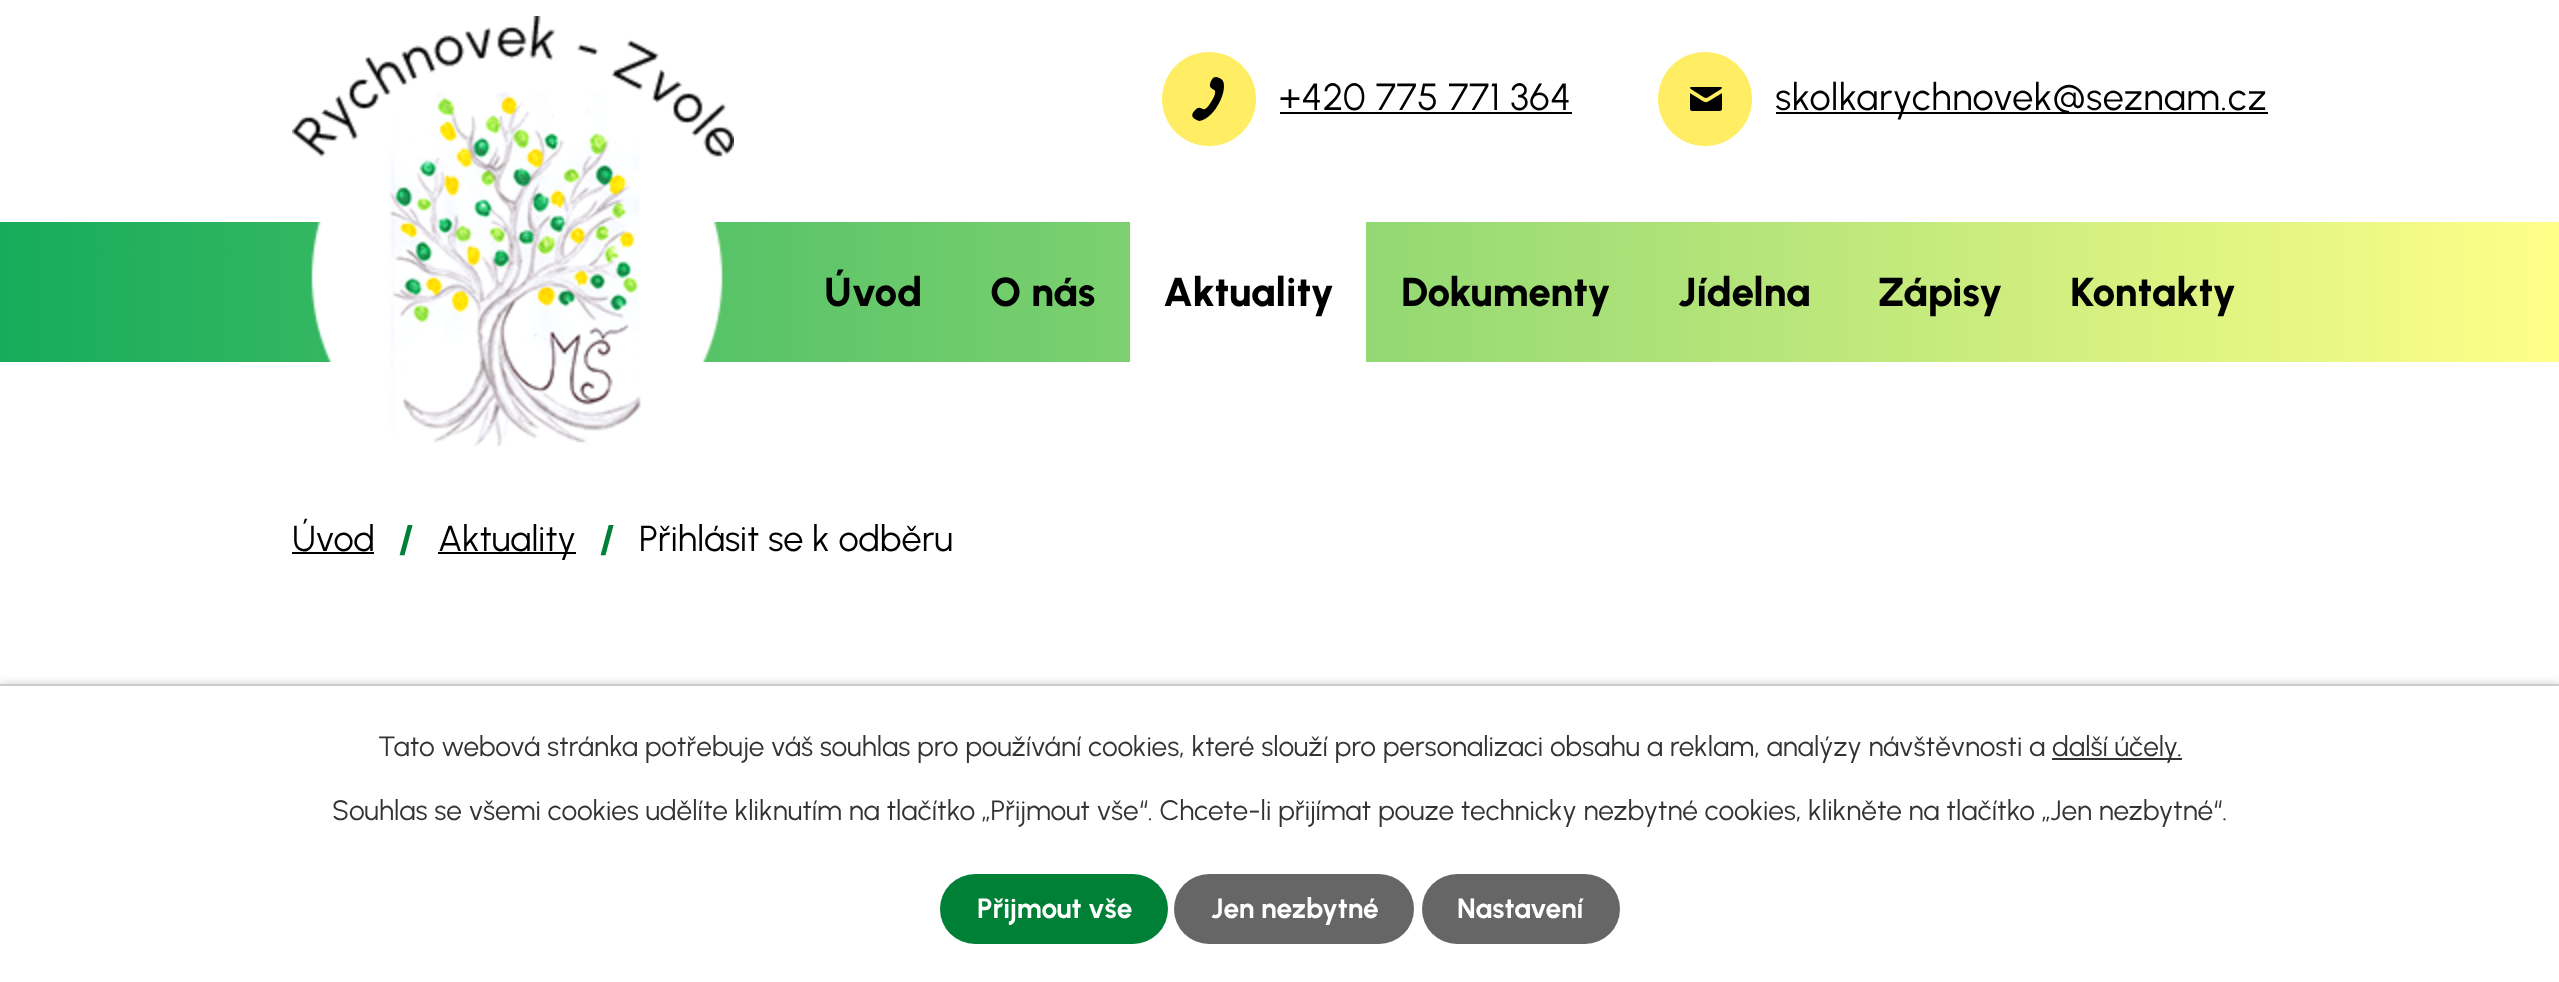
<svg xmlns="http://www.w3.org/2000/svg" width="2559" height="982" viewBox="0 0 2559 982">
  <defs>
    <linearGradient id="g1" gradientUnits="userSpaceOnUse" x1="0" y1="292" x2="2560" y2="292"><stop offset="0" stop-color="#16ac5b"/><stop offset="1" stop-color="#ff8"/></linearGradient>
  </defs>
  <rect width="100%" height="100%" fill="#fff"/>
  <path d="M0 222h2559v140H0z" fill="url(#g1)"/>
  <image x="292" y="16" width="442" height="431" href="img/1.png"/>
  <circle cx="1209" cy="99" r="47" fill="#ffed63"/>
  <image x="1192" y="77" width="32" height="44" href="img/2.png"/>
  <path d="M1280 112h292v2H1280z" fill="#000"/>
  <circle cx="1705" cy="99" r="47" fill="#ffed63"/>
  <image x="1690" y="87" width="32" height="24" href="img/3.png"/>
  <path d="M1776 112h492v2H1776z" fill="#000"/>
  <path d="M1130 222h236v140H1130z" fill="#fff"/>
  <path d="M292 552h82v2H292z" fill="#000"/>
  <path d="M438 552h138v2H438z" fill="#000"/>
  <path d="M0 684h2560v298H0z" fill="#00000033" filter="blur(5px)"/>
  <path d="M0 686h2559v296H0z" fill="#fff"/>
  <path d="M0 684h2559v2H0z" fill="#ccc"/>
  <path d="M2052 758h130v2H2052z" fill="#333"/>
  <rect x="940" y="874" width="228" height="70" rx="35" fill="#008036"/>
  <rect x="1174" y="874" width="240" height="70" rx="35" fill="#666"/>
  <rect x="1422" y="874" width="198" height="70" rx="35" fill="#666"/>
  <g font-family="Urbanist" font-size="37.75" letter-spacing="0.6" fill="#000">
    <text x="1279" y="110">+420 775 771 364</text>
    <text x="1775" y="110">skolkarychnovek@seznam.cz</text>
  </g>
  <g font-family="Urbanist" font-size="40.5" font-weight="800" fill="#000">
    <text x="824" y="306">Úvod</text>
    <text x="990" y="306">O nás</text>
    <text x="1163" y="306">Aktuality</text>
    <text x="1401" y="306">Dokumenty</text>
    <text x="1678" y="306">Jídelna</text>
    <text x="1878" y="306">Zápisy</text>
    <text x="2070" y="306">Kontakty</text>
  </g>
  <text x="292" y="551" font-family="Urbanist" font-size="36" fill="#000">Úvod</text>
  <text x="398" y="553" font-family="Urbanist" font-size="40" font-weight="bold" fill="#008036">/</text>
  <text x="438" y="551" font-family="Urbanist" font-size="36" fill="#000">Aktuality</text>
  <text x="599" y="553" font-family="Urbanist" font-size="40" font-weight="bold" fill="#008036">/</text>
  <text x="639" y="551" font-family="Urbanist" font-size="36" fill="#000">Přihlásit se k odběru</text>
  <g font-family="Urbanist" font-size="28" fill="#333">
    <text x="378" y="756">Tato webová stránka potřebuje váš souhlas pro používání cookies, které slouží pro personalizaci obsahu a reklam, analýzy návštěvnosti a</text>
    <text x="2052" y="756">další účely.</text>
    <text x="332" y="820">Souhlas se všemi cookies udělíte kliknutím na tlačítko „Přijmout vše“. Chcete-li přijímat pouze technicky nezbytné cookies, klikněte na tlačítko „Jen nezbytné“.</text>
  </g>
  <g font-family="Urbanist" font-size="28" font-weight="bold" fill="#fff">
    <text x="977" y="918">Přijmout vše</text>
    <text x="1211" y="918">Jen nezbytné</text>
    <text x="1457" y="918">Nastavení</text>
  </g>
</svg>
